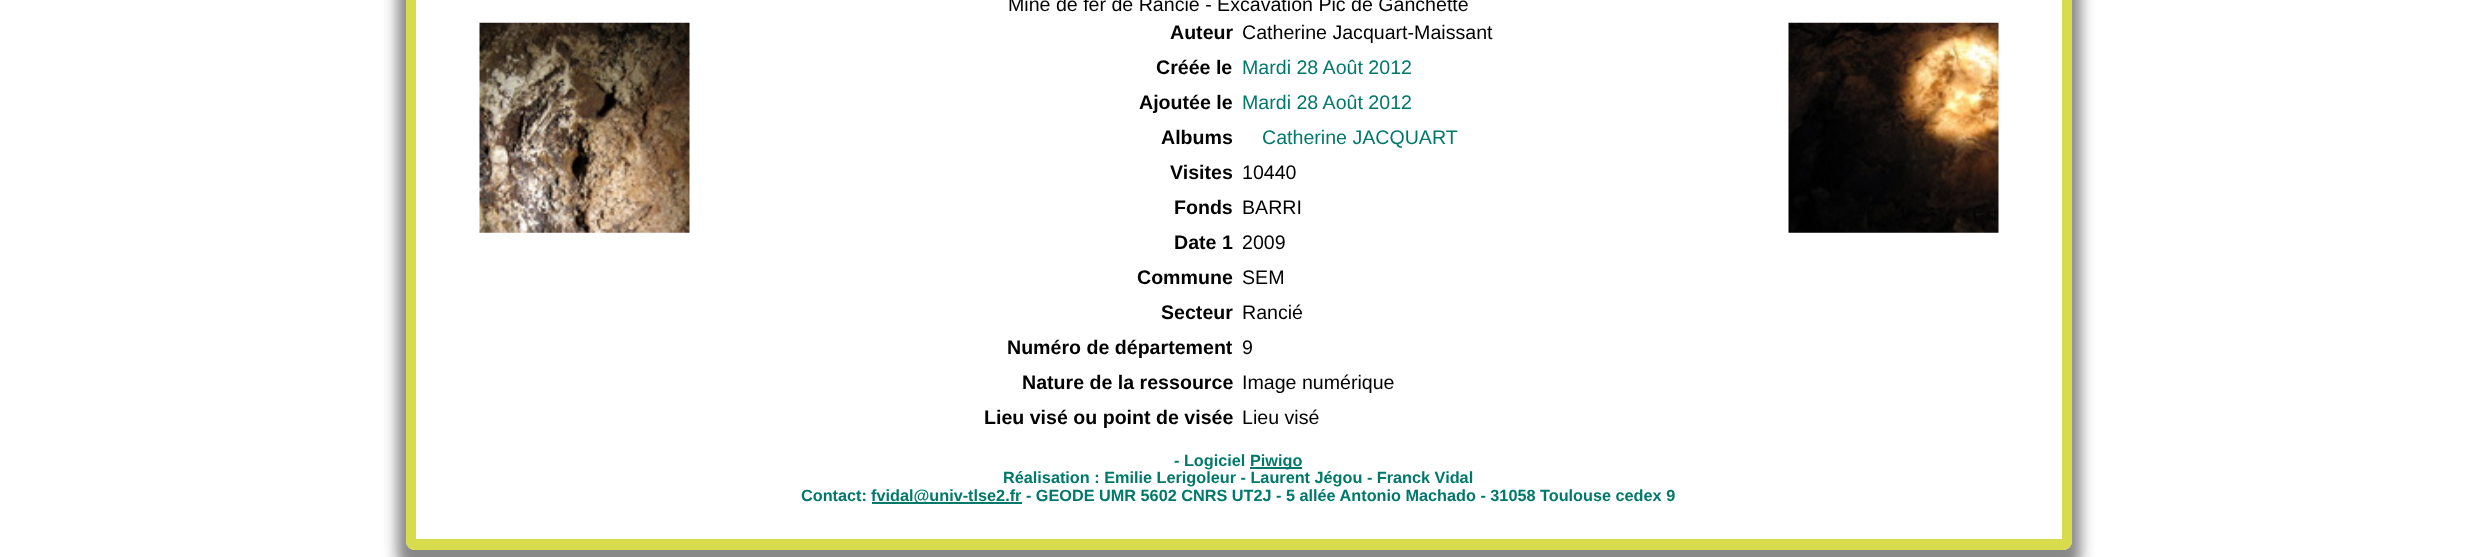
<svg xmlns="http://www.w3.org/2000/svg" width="2476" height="557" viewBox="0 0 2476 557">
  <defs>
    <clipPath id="clip1"><path d="M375 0H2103V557H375ZM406-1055H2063C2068-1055 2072-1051 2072-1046V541C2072 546 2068 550 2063 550H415C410 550 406 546 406 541Z" clip-rule="evenodd"/></clipPath>
  </defs>
  <rect width="100%" height="100%" fill="#fff"/>
  <g clip-path="url(#clip1)">
    <rect x="397" y="-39" width="1684" height="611" rx="18" fill="#888" filter="blur(7px)"/>
  </g>
  <path d="M406-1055H2063C2068-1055 2072-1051 2072-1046V541C2072 546 2068 550 2063 550H415C410 550 406 546 406 541ZM416-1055H2062V539H416Z" fill="#d8db4b" fill-rule="evenodd"/>
  <image x="479" y="22" width="211" height="211" href="img/1.png"/>
  <image x="1788" y="22" width="211" height="211" href="img/2.png"/>
  <path d="M1250 467h52v2H1250z" fill="#00786a"/>
  <path d="M872 502h150v2H872z" fill="#00786a"/>
  <text x="1008" y="11" font-family="Liberation Sans" font-size="19.6" fill="#000">Mine de fer de Rancié - Excavation Pic de Ganchette</text>
  <text x="1170" y="39" font-family="Liberation Sans" font-size="19.6" font-weight="bold" fill="#000">Auteur</text>
  <text x="1242" y="39" font-family="Liberation Sans" font-size="19.6" fill="#000">Catherine Jacquart-Maissant</text>
  <text x="1156" y="74" font-family="Liberation Sans" font-size="19.6" font-weight="bold" fill="#000">Créée le</text>
  <text x="1242" y="74" font-family="Liberation Sans" font-size="19.6" fill="#00786a">Mardi 28 Août 2012</text>
  <text x="1139" y="109" font-family="Liberation Sans" font-size="19.6" font-weight="bold" fill="#000">Ajoutée le</text>
  <text x="1242" y="109" font-family="Liberation Sans" font-size="19.6" fill="#00786a">Mardi 28 Août 2012</text>
  <text x="1161" y="144" font-family="Liberation Sans" font-size="19.6" font-weight="bold" fill="#000">Albums</text>
  <text x="1262" y="144" font-family="Liberation Sans" font-size="19.6" fill="#00786a">Catherine JACQUART</text>
  <text x="1170" y="179" font-family="Liberation Sans" font-size="19.6" font-weight="bold" fill="#000">Visites</text>
  <text x="1242" y="179" font-family="Liberation Sans" font-size="19.6" fill="#000">10440</text>
  <text x="1174" y="214" font-family="Liberation Sans" font-size="19.6" font-weight="bold" fill="#000">Fonds</text>
  <text x="1242" y="214" font-family="Liberation Sans" font-size="19.6" fill="#000">BARRI</text>
  <text x="1174" y="249" font-family="Liberation Sans" font-size="19.6" font-weight="bold" fill="#000">Date 1</text>
  <text x="1242" y="249" font-family="Liberation Sans" font-size="19.6" fill="#000">2009</text>
  <text x="1137" y="284" font-family="Liberation Sans" font-size="19.6" font-weight="bold" fill="#000">Commune</text>
  <text x="1242" y="284" font-family="Liberation Sans" font-size="19.6" fill="#000">SEM</text>
  <text x="1161" y="319" font-family="Liberation Sans" font-size="19.6" font-weight="bold" fill="#000">Secteur</text>
  <text x="1242" y="319" font-family="Liberation Sans" font-size="19.6" fill="#000">Rancié</text>
  <text x="1007" y="354" font-family="Liberation Sans" font-size="19.6" font-weight="bold" fill="#000">Numéro de département</text>
  <text x="1242" y="354" font-family="Liberation Sans" font-size="19.6" fill="#000">9</text>
  <text x="1022" y="389" font-family="Liberation Sans" font-size="19.6" font-weight="bold" fill="#000">Nature de la ressource</text>
  <text x="1242" y="389" font-family="Liberation Sans" font-size="19.6" fill="#000">Image numérique</text>
  <text x="984" y="424" font-family="Liberation Sans" font-size="19.6" font-weight="bold" fill="#000">Lieu visé ou point de visée</text>
  <text x="1242" y="424" font-family="Liberation Sans" font-size="19.6" fill="#000">Lieu visé</text>
  <g font-family="Liberation Sans" font-size="16.25" font-weight="bold" fill="#00786a">
    <text x="1174" y="466">- Logiciel</text>
    <text x="1250" y="466">Piwigo</text>
    <text x="1003" y="483">Réalisation : Emilie Lerigoleur - Laurent Jégou - Franck Vidal</text>
    <text x="801" y="501">Contact:</text>
    <text x="871" y="501">fvidal@univ-tlse2.fr - GEODE UMR 5602 CNRS UT2J - 5 allée Antonio Machado - 31058 Toulouse cedex 9</text>
  </g>
</svg>
